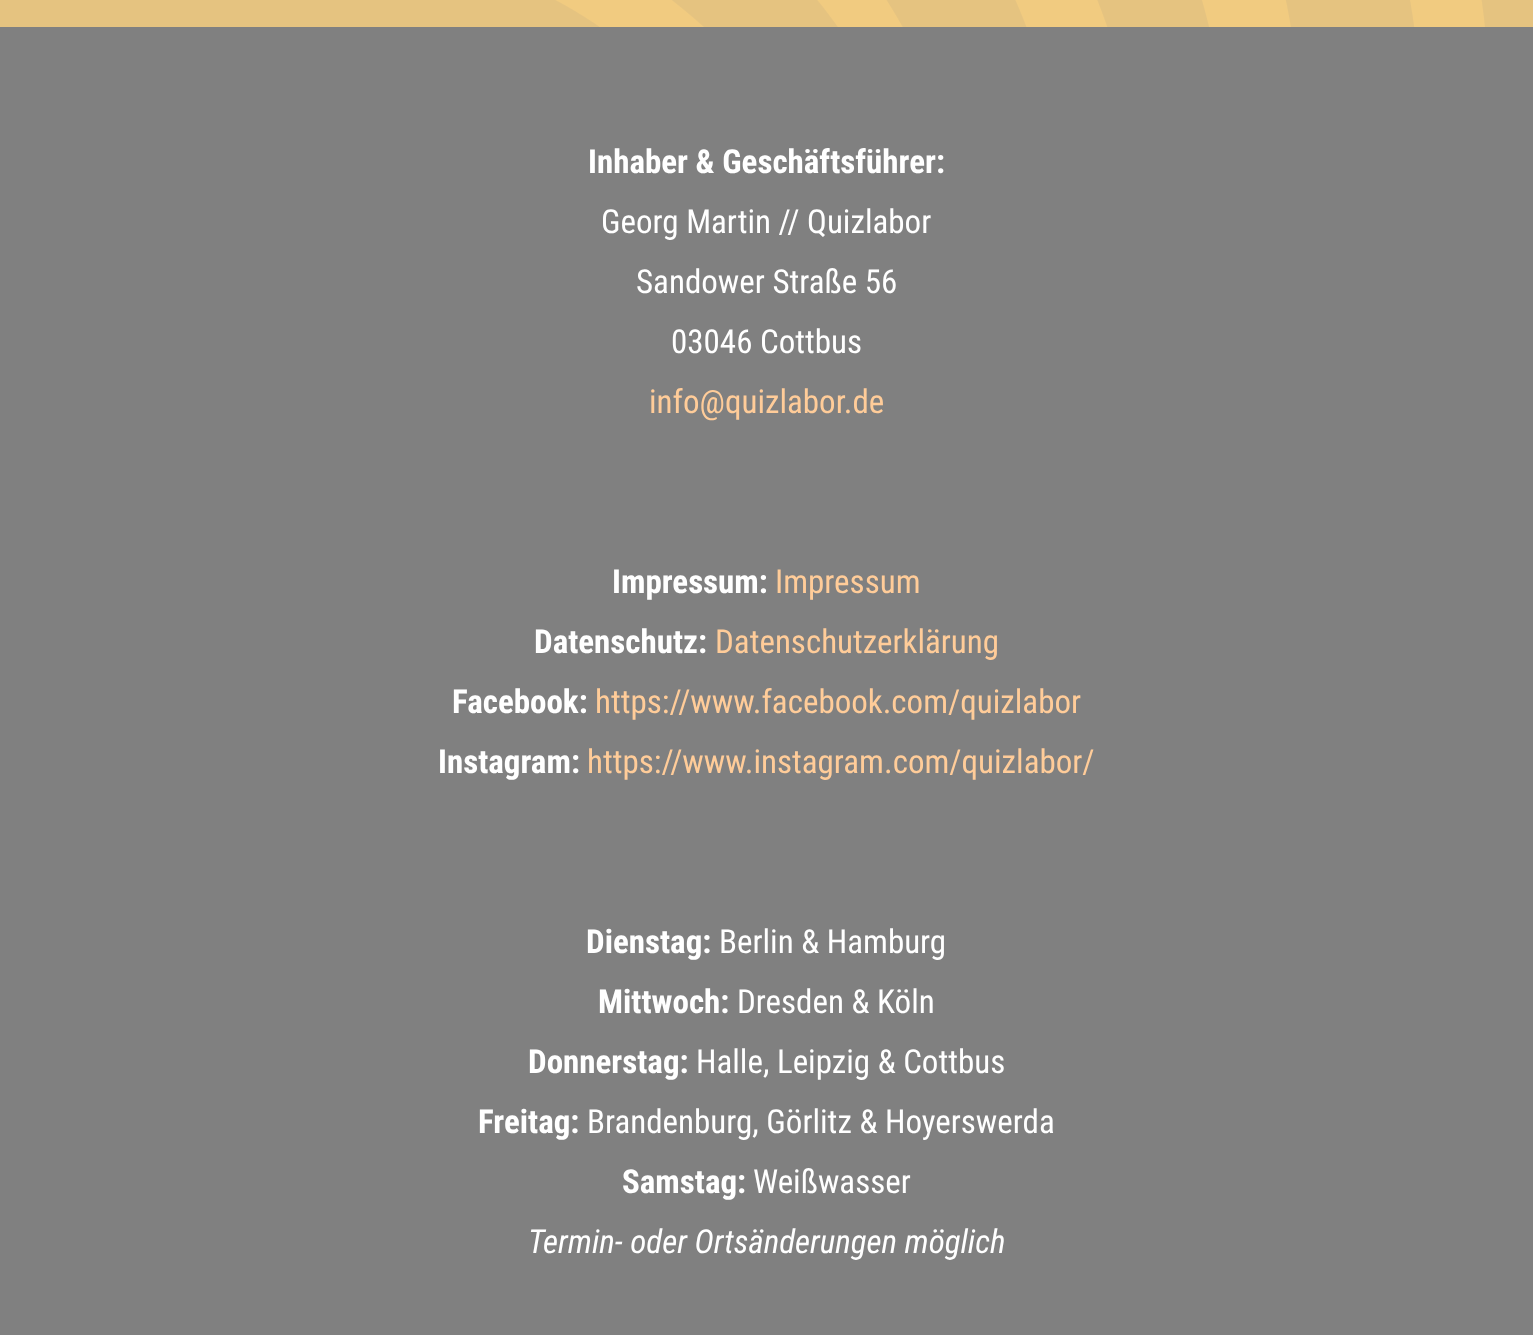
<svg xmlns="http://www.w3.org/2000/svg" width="1533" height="1335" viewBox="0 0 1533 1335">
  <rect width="100%" height="100%" fill="#f1cb80"/>
  <image x="0" y="0" width="1533" height="27" href="img/1.png"/>
  <path d="M0 27h1533v1308H0z" fill="#808080"/>
  <text x="588" y="173" font-family="Roboto Condensed" font-size="33" font-weight="bold" fill="#fff">Inhaber &amp; Geschäftsführer:</text>
  <g font-family="Roboto Condensed" font-size="33" fill="#fff">
    <text x="601" y="233">Georg Martin // Quizlabor</text>
    <text x="636" y="293">Sandower Straße 56</text>
    <text x="671" y="353">03046 Cottbus</text>
  </g>
  <text x="649" y="413" font-family="Roboto Condensed" font-size="33" fill="#fc9">info@quizlabor.de</text>
  <text x="612" y="593" font-family="Roboto Condensed" font-size="33" font-weight="bold" fill="#fff">Impressum:</text>
  <text x="775" y="593" font-family="Roboto Condensed" font-size="33" fill="#fc9">Impressum</text>
  <text x="534" y="653" font-family="Roboto Condensed" font-size="33" font-weight="bold" fill="#fff">Datenschutz:</text>
  <text x="715" y="653" font-family="Roboto Condensed" font-size="33" fill="#fc9">Datenschutzerklärung</text>
  <text x="452" y="713" font-family="Roboto Condensed" font-size="33" font-weight="bold" fill="#fff">Facebook:</text>
  <text x="595" y="713" font-family="Roboto Condensed" font-size="33" fill="#fc9">https://www.facebook.com/quizlabor</text>
  <text x="438" y="773" font-family="Roboto Condensed" font-size="33" font-weight="bold" fill="#fff">Instagram:</text>
  <text x="587" y="773" font-family="Roboto Condensed" font-size="33" fill="#fc9">https://www.instagram.com/quizlabor/</text>
  <text x="586" y="953" font-family="Roboto Condensed" font-size="33" font-weight="bold" fill="#fff">Dienstag:</text>
  <text x="719" y="953" font-family="Roboto Condensed" font-size="33" fill="#fff">Berlin &amp; Hamburg</text>
  <text x="598" y="1013" font-family="Roboto Condensed" font-size="33" font-weight="bold" fill="#fff">Mittwoch:</text>
  <text x="737" y="1013" font-family="Roboto Condensed" font-size="33" fill="#fff">Dresden &amp; Köln</text>
  <text x="528" y="1073" font-family="Roboto Condensed" font-size="33" font-weight="bold" fill="#fff">Donnerstag:</text>
  <text x="696" y="1073" font-family="Roboto Condensed" font-size="33" fill="#fff">Halle, Leipzig &amp; Cottbus</text>
  <text x="478" y="1133" font-family="Roboto Condensed" font-size="33" font-weight="bold" fill="#fff">Freitag:</text>
  <text x="587" y="1133" font-family="Roboto Condensed" font-size="33" fill="#fff">Brandenburg, Görlitz &amp; Hoyerswerda</text>
  <text x="622" y="1193" font-family="Roboto Condensed" font-size="33" font-weight="bold" fill="#fff">Samstag:</text>
  <text x="753" y="1193" font-family="Roboto Condensed" font-size="33" fill="#fff">Weißwasser</text>
  <text x="528" y="1253" font-family="Roboto Condensed" font-size="33" font-style="italic" fill="#fff">Termin- oder Ortsänderungen möglich</text>
</svg>
